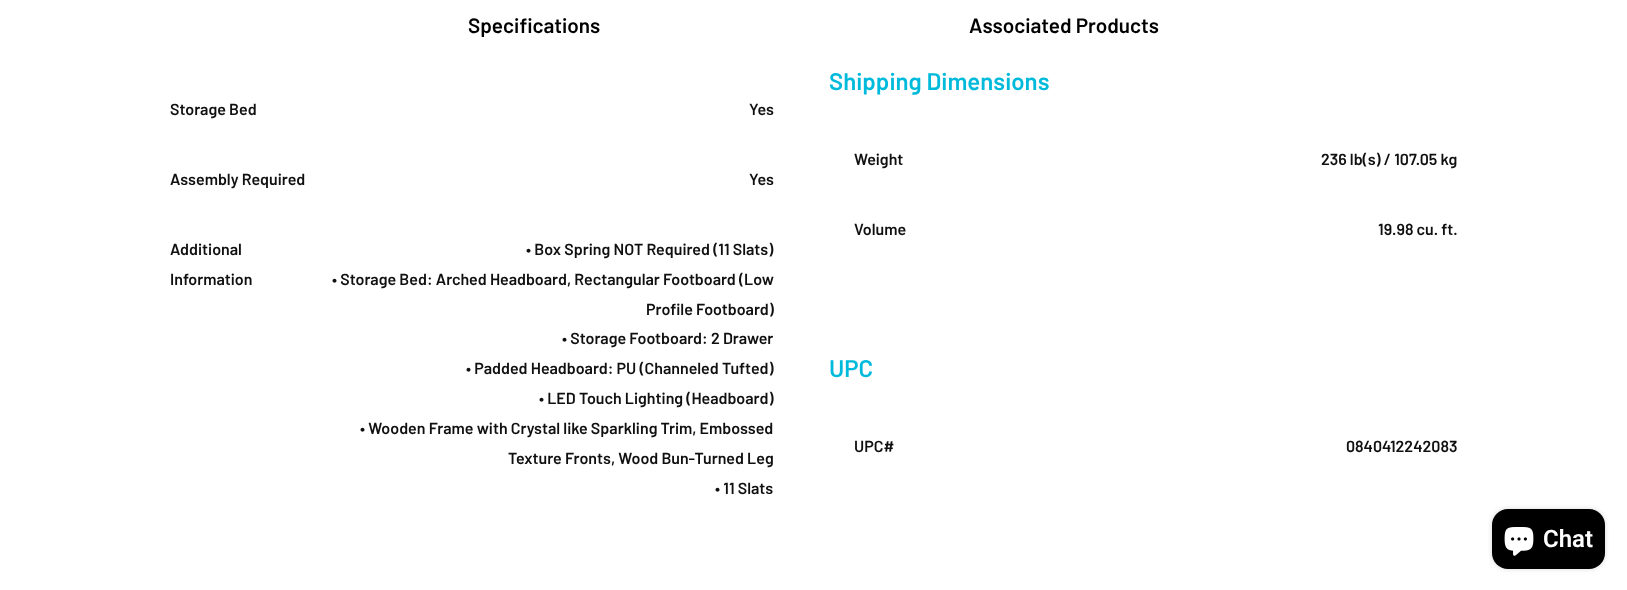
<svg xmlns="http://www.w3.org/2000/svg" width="1627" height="590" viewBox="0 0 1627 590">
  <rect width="100%" height="100%" fill="#fff"/>
  <rect x="1492" y="509" width="113" height="60" rx="16" fill="#00000026" filter="blur(2.5px)"/>
  <rect x="1492" y="509" width="113" height="60" rx="16" fill="#000"/>
  <image x="1504" y="527" width="30" height="29" href="img/1.png"/>
  <g font-family="Barlow" font-size="20.75" font-weight="600" fill="#000">
    <text x="468" y="33">Specifications</text>
    <text x="969" y="33">Associated Products</text>
  </g>
  <g font-family="Barlow" font-size="16" font-weight="600" fill="#101010">
    <text x="170" y="115">Storage Bed</text>
    <text x="749" y="115">Yes</text>
    <text x="170" y="185">Assembly Required</text>
    <text x="749" y="185">Yes</text>
    <text x="170" y="255">Additional</text>
    <text x="170" y="285">Information</text>
    <text x="526" y="255">• Box Spring NOT Required (11 Slats)</text>
    <text x="332" y="285">• Storage Bed: Arched Headboard, Rectangular Footboard (Low</text>
    <text x="646" y="315">Profile Footboard)</text>
    <text x="562" y="344">• Storage Footboard: 2 Drawer</text>
    <text x="466" y="374">• Padded Headboard: PU (Channeled Tufted)</text>
    <text x="539" y="404">• LED Touch Lighting (Headboard)</text>
    <text x="360" y="434">• Wooden Frame with Crystal like Sparkling Trim, Embossed</text>
    <text x="508" y="464">Texture Fronts, Wood Bun-Turned Leg</text>
    <text x="715" y="494">• 11 Slats</text>
  </g>
  <text x="829" y="90" font-family="Barlow" font-size="24" font-weight="600" fill="#00badb">Shipping Dimensions</text>
  <g font-family="Barlow" font-size="16" font-weight="600" fill="#101010">
    <text x="854" y="165">Weight</text>
    <text x="1321" y="165">236 lb(s) / 107.05 kg</text>
    <text x="854" y="235">Volume</text>
    <text x="1378" y="235">19.98 cu. ft.</text>
  </g>
  <text x="829" y="377" font-family="Barlow" font-size="24" font-weight="600" fill="#00badb">UPC</text>
  <g font-family="Barlow" font-size="16" font-weight="600" fill="#101010">
    <text x="854" y="452">UPC#</text>
    <text x="1346" y="452">0840412242083</text>
  </g>
  <text x="1543" y="547" font-family="Roboto" font-size="24" font-weight="600" fill="#fff">Chat</text>
</svg>
